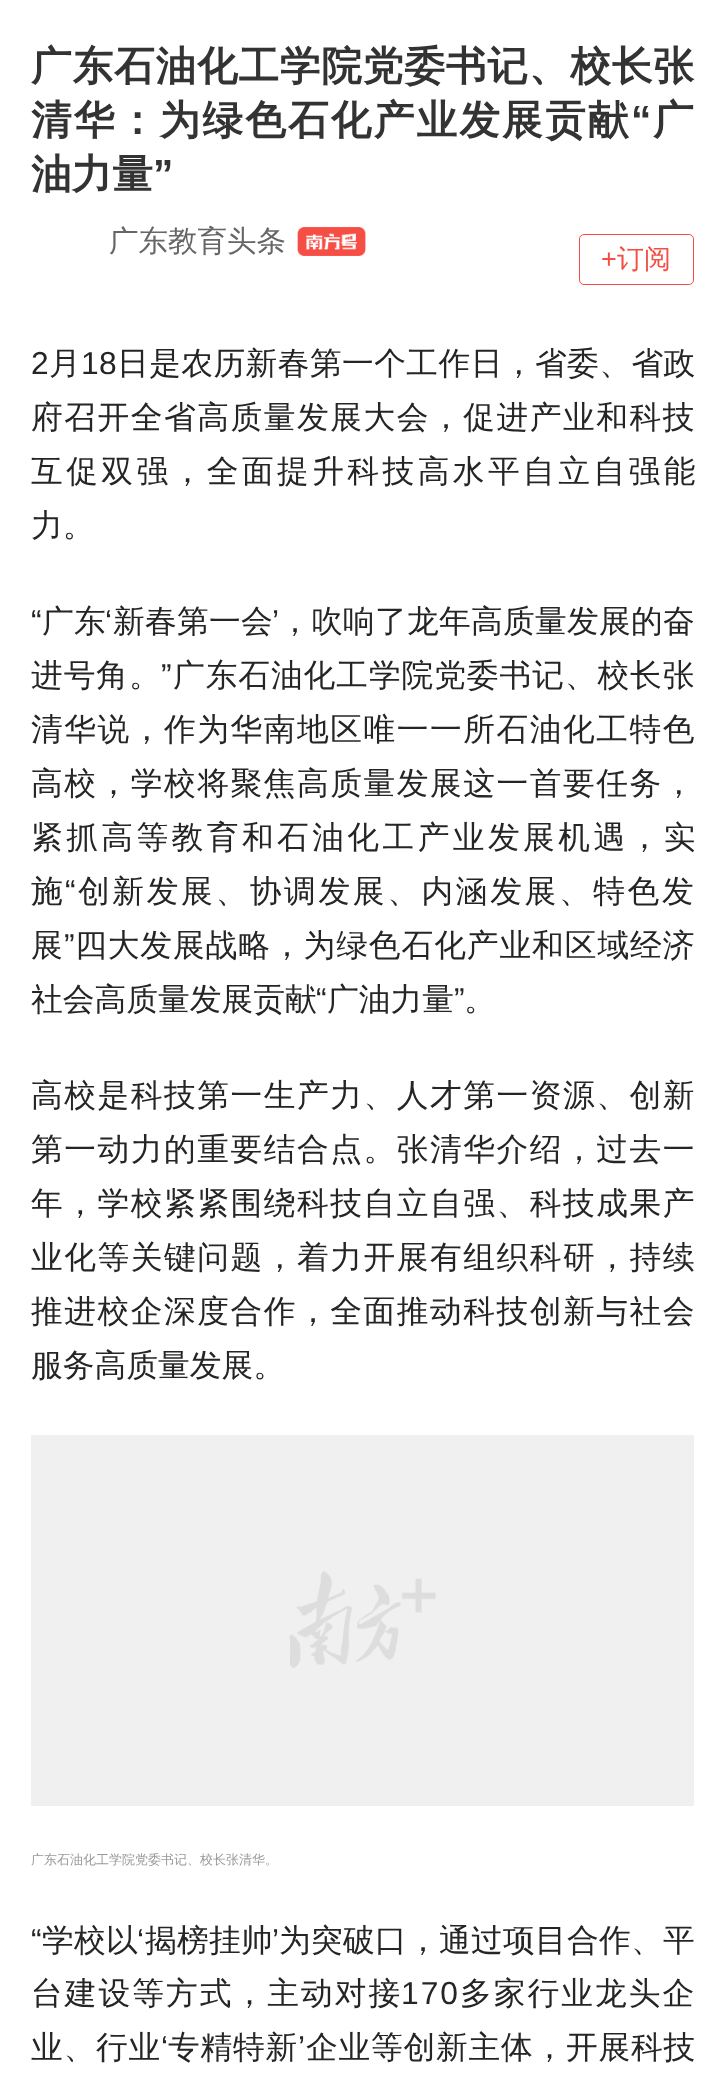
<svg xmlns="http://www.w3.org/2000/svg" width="725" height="2084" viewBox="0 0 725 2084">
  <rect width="100%" height="100%" fill="#fff"/>
  <image x="297" y="227" width="69" height="29" href="img/1.png"/>
  <rect x="579.5" y="234.5" width="114" height="50" rx="4.5" fill="none" stroke="#f64e45"/>
  <image x="31" y="1435" width="663" height="371" href="img/2.png"/>
  <text x="31" y="80" font-family="WenQuanYi Zen Hei" font-size="40.6" font-weight="bold" letter-spacing="0.9" fill="#333">广东石油化工学院党委书记、校长张</text>
  <text x="31" y="134" font-family="WenQuanYi Zen Hei" font-size="40.6" font-weight="bold" letter-spacing="2.25" fill="#333">清华：为绿色石化产业发展贡献</text>
  <text x="631" y="134" font-family="Liberation Sans" font-size="40.6" font-weight="bold" letter-spacing="2.25" fill="#333">“</text>
  <text x="653" y="134" font-family="WenQuanYi Zen Hei" font-size="40.6" font-weight="bold" letter-spacing="2.25" fill="#333">广</text>
  <text x="31" y="188" font-family="WenQuanYi Zen Hei" font-size="40.6" font-weight="bold" fill="#333">油力量</text>
  <text x="153" y="188" font-family="Liberation Sans" font-size="40.6" font-weight="bold" fill="#333">”</text>
  <text x="109" y="251" font-family="WenQuanYi Zen Hei" font-size="29.5" font-weight="500" fill="#666">广东教育头条</text>
  <text x="601" y="268" font-family="Liberation Sans" font-size="27" fill="#f64e45">+</text>
  <text x="617" y="268" font-family="WenQuanYi Zen Hei" font-size="27" font-weight="500" fill="#f64e45">订阅</text>
  <text x="31" y="374" font-family="Liberation Sans" font-size="31.75" letter-spacing="0.4" fill="#252525">2</text>
  <text x="49" y="374" font-family="WenQuanYi Zen Hei" font-size="31.75" font-weight="500" letter-spacing="0.4" fill="#252525">月</text>
  <text x="81" y="374" font-family="Liberation Sans" font-size="31.75" letter-spacing="0.4" fill="#252525">18</text>
  <text x="117" y="374" font-family="WenQuanYi Zen Hei" font-size="31.75" font-weight="500" letter-spacing="0.4" fill="#252525">日是农历新春第一个工作日，省委、省政</text>
  <text x="31" y="428" font-family="WenQuanYi Zen Hei" font-size="31.75" font-weight="500" letter-spacing="1.5" fill="#252525">府召开全省高质量发展大会，促进产业和科技</text>
  <text x="31" y="482" font-family="WenQuanYi Zen Hei" font-size="31.75" font-weight="500" letter-spacing="3.4" fill="#252525">互促双强，全面提升科技高水平自立自强能</text>
  <text x="31" y="536" font-family="WenQuanYi Zen Hei" font-size="31.75" font-weight="500" fill="#252525">力。</text>
  <text x="31" y="632" font-family="Liberation Sans" font-size="31.75" letter-spacing="0.25" fill="#252525">“</text>
  <text x="42" y="632" font-family="WenQuanYi Zen Hei" font-size="31.75" font-weight="500" letter-spacing="0.25" fill="#252525">广东</text>
  <text x="105" y="632" font-family="Liberation Sans" font-size="31.75" letter-spacing="0.25" fill="#252525">‘</text>
  <text x="113" y="632" font-family="WenQuanYi Zen Hei" font-size="31.75" font-weight="500" letter-spacing="0.25" fill="#252525">新春第一会</text>
  <text x="272" y="632" font-family="Liberation Sans" font-size="31.75" letter-spacing="0.25" fill="#252525">’</text>
  <text x="279" y="632" font-family="WenQuanYi Zen Hei" font-size="31.75" font-weight="500" letter-spacing="0.25" fill="#252525">，吹响了龙年高质量发展的奋</text>
  <text x="31" y="686" font-family="WenQuanYi Zen Hei" font-size="31.75" font-weight="500" letter-spacing="0.9" fill="#252525">进号角。</text>
  <text x="161" y="686" font-family="Liberation Sans" font-size="31.75" letter-spacing="0.9" fill="#252525">”</text>
  <text x="173" y="686" font-family="WenQuanYi Zen Hei" font-size="31.75" font-weight="500" letter-spacing="0.9" fill="#252525">广东石油化工学院党委书记、校长张</text>
  <g font-family="WenQuanYi Zen Hei" font-size="31.75" font-weight="500" letter-spacing="1.5" fill="#252525">
    <text x="31" y="740">清华说，作为华南地区唯一一所石油化工特色</text>
    <text x="31" y="794">高校，学校将聚焦高质量发展这一首要任务，</text>
  </g>
  <text x="31" y="848" font-family="WenQuanYi Zen Hei" font-size="31.75" font-weight="500" letter-spacing="3.4" fill="#252525">紧抓高等教育和石油化工产业发展机遇，实</text>
  <text x="31" y="902" font-family="WenQuanYi Zen Hei" font-size="31.75" font-weight="500" letter-spacing="2.6" fill="#252525">施</text>
  <text x="65" y="902" font-family="Liberation Sans" font-size="31.75" letter-spacing="2.6" fill="#252525">“</text>
  <text x="78" y="902" font-family="WenQuanYi Zen Hei" font-size="31.75" font-weight="500" letter-spacing="2.6" fill="#252525">创新发展、协调发展、内涵发展、特色发</text>
  <text x="31" y="956" font-family="WenQuanYi Zen Hei" font-size="31.75" font-weight="500" letter-spacing="0.9" fill="#252525">展</text>
  <text x="64" y="956" font-family="Liberation Sans" font-size="31.75" letter-spacing="0.9" fill="#252525">”</text>
  <text x="75" y="956" font-family="WenQuanYi Zen Hei" font-size="31.75" font-weight="500" letter-spacing="0.9" fill="#252525">四大发展战略，为绿色石化产业和区域经济</text>
  <text x="31" y="1010" font-family="WenQuanYi Zen Hei" font-size="31.75" font-weight="500" fill="#252525">社会高质量发展贡献</text>
  <text x="316" y="1010" font-family="Liberation Sans" font-size="31.75" fill="#252525">“</text>
  <text x="327" y="1010" font-family="WenQuanYi Zen Hei" font-size="31.75" font-weight="500" fill="#252525">广油力量</text>
  <text x="454" y="1010" font-family="Liberation Sans" font-size="31.75" fill="#252525">”</text>
  <text x="464" y="1010" font-family="WenQuanYi Zen Hei" font-size="31.75" font-weight="500" fill="#252525">。</text>
  <g font-family="WenQuanYi Zen Hei" font-size="31.75" font-weight="500" letter-spacing="1.5" fill="#252525">
    <text x="31" y="1106">高校是科技第一生产力、人才第一资源、创新</text>
    <text x="31" y="1160">第一动力的重要结合点。张清华介绍，过去一</text>
    <text x="31" y="1214">年，学校紧紧围绕科技自立自强、科技成果产</text>
    <text x="31" y="1268">业化等关键问题，着力开展有组织科研，持续</text>
    <text x="31" y="1322">推进校企深度合作，全面推动科技创新与社会</text>
  </g>
  <text x="31" y="1376" font-family="WenQuanYi Zen Hei" font-size="31.75" font-weight="500" fill="#252525">服务高质量发展。</text>
  <text x="31" y="1864" font-family="WenQuanYi Zen Hei" font-size="13" font-weight="500" fill="#999">广东石油化工学院党委书记、校长张清华。</text>
  <text x="31" y="1951" font-family="Liberation Sans" font-size="31.75" letter-spacing="0.25" fill="#252525">“</text>
  <text x="42" y="1951" font-family="WenQuanYi Zen Hei" font-size="31.75" font-weight="500" letter-spacing="0.25" fill="#252525">学校以</text>
  <text x="137" y="1951" font-family="Liberation Sans" font-size="31.75" letter-spacing="0.25" fill="#252525">‘</text>
  <text x="145" y="1951" font-family="WenQuanYi Zen Hei" font-size="31.75" font-weight="500" letter-spacing="0.25" fill="#252525">揭榜挂帅</text>
  <text x="272" y="1951" font-family="Liberation Sans" font-size="31.75" letter-spacing="0.25" fill="#252525">’</text>
  <text x="279" y="1951" font-family="WenQuanYi Zen Hei" font-size="31.75" font-weight="500" letter-spacing="0.25" fill="#252525">为突破口，通过项目合作、平</text>
  <text x="31" y="2004" font-family="WenQuanYi Zen Hei" font-size="31.75" font-weight="500" letter-spacing="2" fill="#252525">台建设等方式，主动对接</text>
  <text x="401" y="2004" font-family="Liberation Sans" font-size="31.75" letter-spacing="2" fill="#252525">170</text>
  <text x="460" y="2004" font-family="WenQuanYi Zen Hei" font-size="31.75" font-weight="500" letter-spacing="2" fill="#252525">多家行业龙头企</text>
  <text x="31" y="2058" font-family="WenQuanYi Zen Hei" font-size="31.75" font-weight="500" letter-spacing="0.75" fill="#252525">业、行业</text>
  <text x="161" y="2058" font-family="Liberation Sans" font-size="31.75" letter-spacing="0.75" fill="#252525">‘</text>
  <text x="168" y="2058" font-family="WenQuanYi Zen Hei" font-size="31.75" font-weight="500" letter-spacing="0.75" fill="#252525">专精特新</text>
  <text x="298" y="2058" font-family="Liberation Sans" font-size="31.75" letter-spacing="0.75" fill="#252525">’</text>
  <text x="306" y="2058" font-family="WenQuanYi Zen Hei" font-size="31.75" font-weight="500" letter-spacing="0.75" fill="#252525">企业等创新主体，开展科技</text>
</svg>
